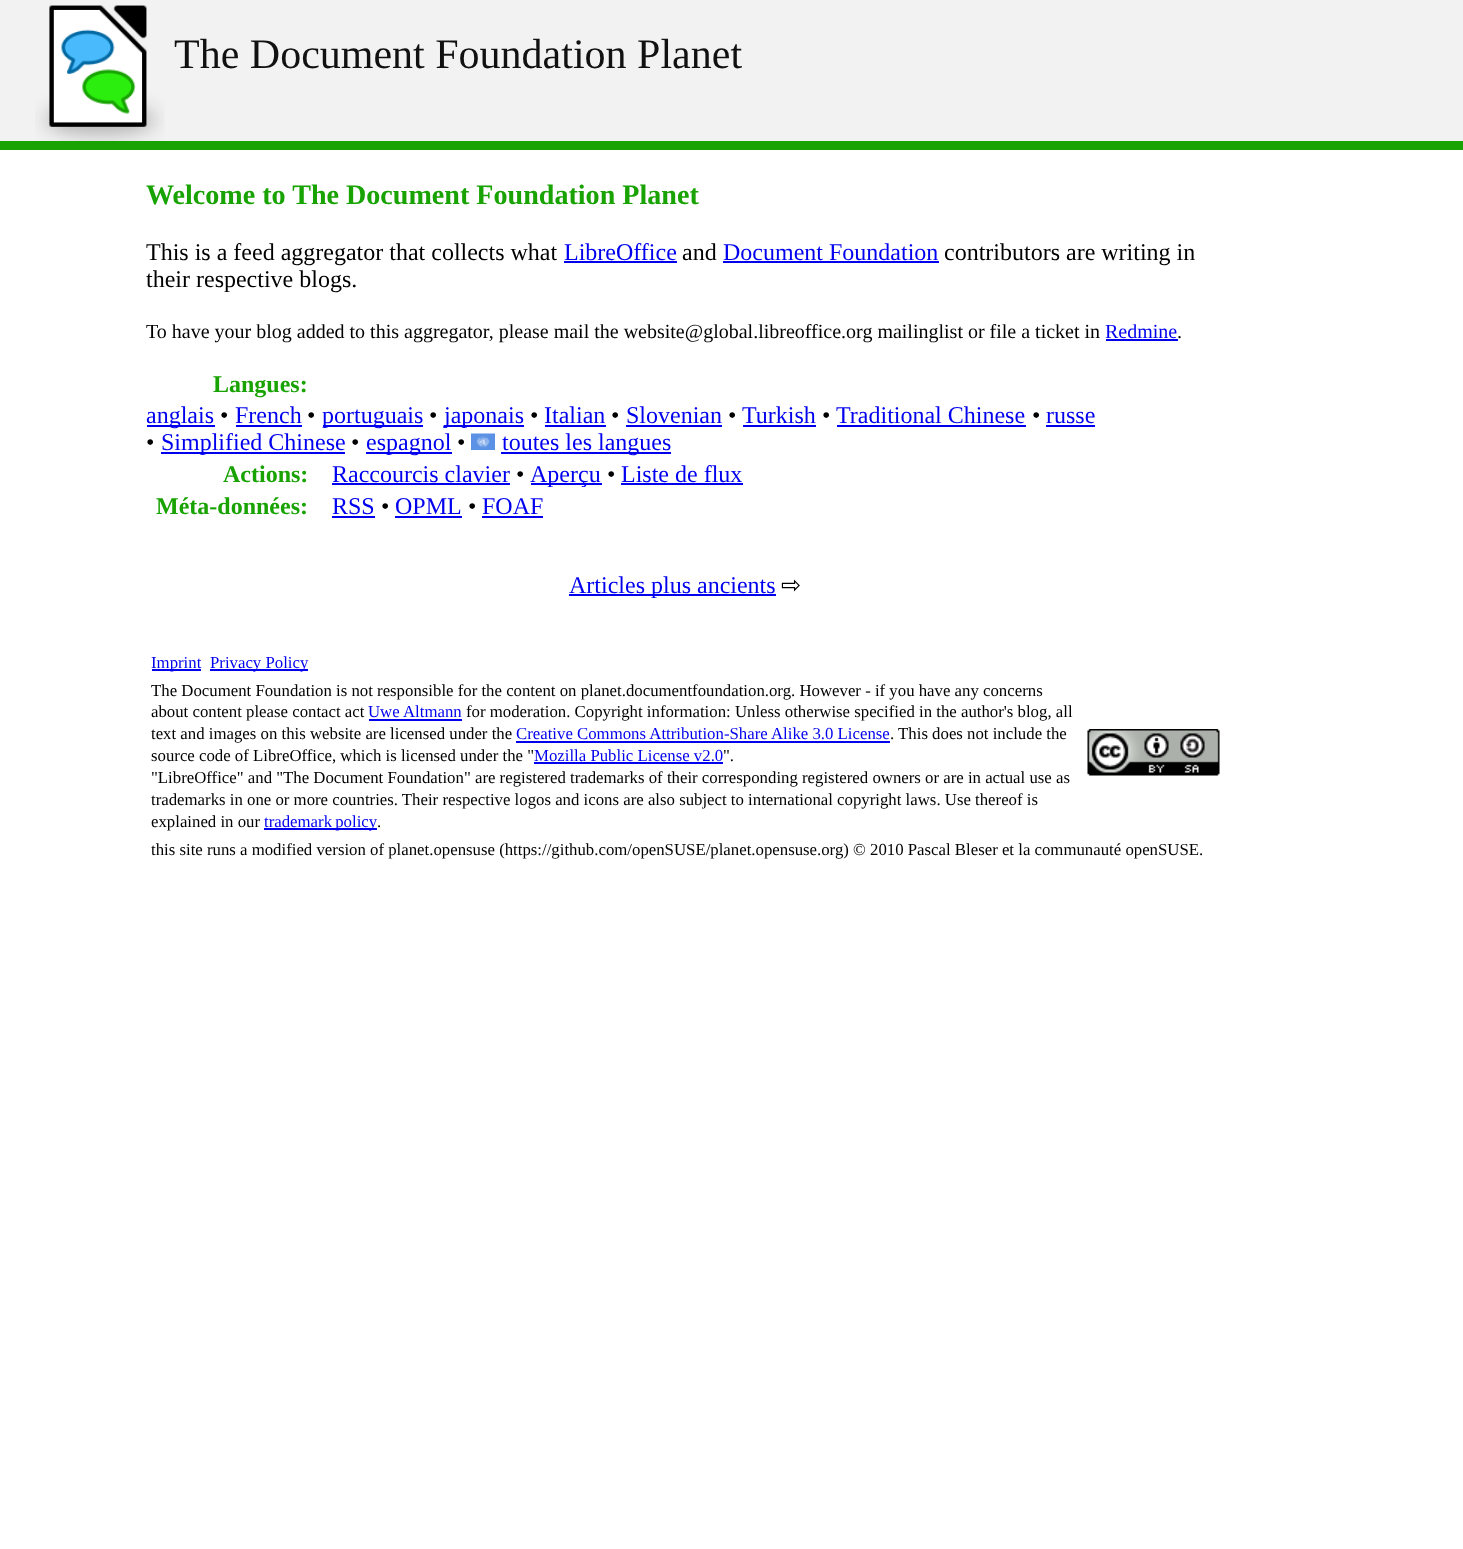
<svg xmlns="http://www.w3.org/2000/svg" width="1463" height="1549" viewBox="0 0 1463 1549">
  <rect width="100%" height="100%" fill="#fff"/>
  <path d="M0 0h1463v141H0z" fill="#f2f2f2"/>
  <image x="35" y="5" width="130" height="136" href="img/1.png"/>
  <path d="M0 141h1463v9H0z" fill="#18a303"/>
  <path d="M564 261h113v2H564z" fill="#00e"/>
  <path d="M723 261h216v2H723z" fill="#00e"/>
  <path d="M1106 339h72v2H1106z" fill="#00e"/>
  <path d="M147 425h68v2H147z" fill="#00e"/>
  <path d="M236 425h66v2H236z" fill="#00e"/>
  <path d="M323 425h100v2H323z" fill="#00e"/>
  <path d="M444 425h80v2H444z" fill="#00e"/>
  <path d="M545 425h61v2H545z" fill="#00e"/>
  <path d="M626 425h96v2H626z" fill="#00e"/>
  <path d="M743 425h73v2H743z" fill="#00e"/>
  <path d="M837 425h189v2H837z" fill="#00e"/>
  <path d="M1046 425h49v2H1046z" fill="#00e"/>
  <path d="M161 452h184v2H161z" fill="#00e"/>
  <path d="M366 452h86v2H366z" fill="#00e"/>
  <image x="471" y="433" width="24" height="17" href="img/2.png"/>
  <path d="M501 452h170v2H501z" fill="#00e"/>
  <path d="M332 483h178v2H332z" fill="#00e"/>
  <path d="M531 483h71v2H531z" fill="#00e"/>
  <path d="M621 483h122v2H621z" fill="#00e"/>
  <path d="M332 516h43v2H332z" fill="#00e"/>
  <path d="M395 516h67v2H395z" fill="#00e"/>
  <path d="M482 516h61v2H482z" fill="#00e"/>
  <path d="M569 594h207v2H569z" fill="#00e"/>
  <path d="M152 669h49v2H152z" fill="#00e"/>
  <path d="M210 669h98v2H210z" fill="#00e"/>
  <path d="M369 719h93v2H369z" fill="#00e"/>
  <path d="M516 741h374v2H516z" fill="#00e"/>
  <path d="M534 762h189v2H534z" fill="#00e"/>
  <path d="M264 828h113v2H264z" fill="#00e"/>
  <image x="1087" y="729" width="133" height="47" href="img/3.png"/>
  <text x="174" y="68" font-family="Liberation Serif" font-size="42" fill="#111">The Document Foundation Planet</text>
  <text x="146" y="204" font-family="Liberation Serif" font-size="28.1" font-weight="bold" fill="#18a303">Welcome to The Document Foundation Planet</text>
  <text x="146" y="260" font-family="Liberation Serif" font-size="24" fill="#000">This is a feed aggregator that collects what</text>
  <text x="564" y="260" font-family="Liberation Serif" font-size="24" fill="#00e">LibreOffice</text>
  <text x="682" y="260" font-family="Liberation Serif" font-size="24" fill="#000">and</text>
  <text x="723" y="260" font-family="Liberation Serif" font-size="24" fill="#00e">Document Foundation</text>
  <g font-family="Liberation Serif" font-size="24" fill="#000">
    <text x="944" y="260">contributors are writing in</text>
    <text x="146" y="287">their respective blogs.</text>
  </g>
  <text x="146" y="338" font-family="Liberation Serif" font-size="20" fill="#000">To have your blog added to this aggregator, please mail the website@global.libreoffice.org mailinglist or file a ticket in</text>
  <text x="1105" y="338" font-family="Liberation Serif" font-size="20" fill="#00e">Redmine</text>
  <text x="1177" y="338" font-family="Liberation Serif" font-size="20" fill="#000">.</text>
  <text x="213" y="392" font-family="Liberation Serif" font-size="24" font-weight="bold" fill="#18a303">Langues:</text>
  <text x="146" y="423" font-family="Liberation Serif" font-size="24" fill="#00e">anglais</text>
  <text x="220" y="423" font-family="Liberation Serif" font-size="24" fill="#000">•</text>
  <text x="235" y="423" font-family="Liberation Serif" font-size="24" fill="#00e">French</text>
  <text x="307" y="423" font-family="Liberation Serif" font-size="24" fill="#000">•</text>
  <text x="322" y="423" font-family="Liberation Serif" font-size="24" fill="#00e">portuguais</text>
  <text x="429" y="423" font-family="Liberation Serif" font-size="24" fill="#000">•</text>
  <text x="444" y="423" font-family="Liberation Serif" font-size="24" fill="#00e">japonais</text>
  <text x="530" y="423" font-family="Liberation Serif" font-size="24" fill="#000">•</text>
  <text x="544" y="423" font-family="Liberation Serif" font-size="24" fill="#00e">Italian</text>
  <text x="611" y="423" font-family="Liberation Serif" font-size="24" fill="#000">•</text>
  <text x="626" y="423" font-family="Liberation Serif" font-size="24" fill="#00e">Slovenian</text>
  <text x="728" y="423" font-family="Liberation Serif" font-size="24" fill="#000">•</text>
  <text x="742" y="423" font-family="Liberation Serif" font-size="24" fill="#00e">Turkish</text>
  <text x="822" y="423" font-family="Liberation Serif" font-size="24" fill="#000">•</text>
  <text x="836" y="423" font-family="Liberation Serif" font-size="24" fill="#00e">Traditional Chinese</text>
  <text x="1032" y="423" font-family="Liberation Serif" font-size="24" fill="#000">•</text>
  <text x="1046" y="423" font-family="Liberation Serif" font-size="24" fill="#00e">russe</text>
  <text x="146" y="450" font-family="Liberation Serif" font-size="24" fill="#000">•</text>
  <text x="161" y="450" font-family="Liberation Serif" font-size="24" fill="#00e">Simplified Chinese</text>
  <text x="351" y="450" font-family="Liberation Serif" font-size="24" fill="#000">•</text>
  <text x="366" y="450" font-family="Liberation Serif" font-size="24" fill="#00e">espagnol</text>
  <text x="457" y="450" font-family="Liberation Serif" font-size="24" fill="#000">•</text>
  <text x="502" y="450" font-family="Liberation Serif" font-size="24" fill="#00e">toutes les langues</text>
  <text x="223" y="482" font-family="Liberation Serif" font-size="24" font-weight="bold" fill="#18a303">Actions:</text>
  <text x="332" y="482" font-family="Liberation Serif" font-size="24" fill="#00e">Raccourcis clavier</text>
  <text x="516" y="482" font-family="Liberation Serif" font-size="24" fill="#000">•</text>
  <text x="530" y="482" font-family="Liberation Serif" font-size="24" fill="#00e">Aperçu</text>
  <text x="607" y="482" font-family="Liberation Serif" font-size="24" fill="#000">•</text>
  <text x="621" y="482" font-family="Liberation Serif" font-size="24" fill="#00e">Liste de flux</text>
  <text x="156" y="514" font-family="Liberation Serif" font-size="24" font-weight="bold" fill="#18a303">Méta-données:</text>
  <text x="332" y="514" font-family="Liberation Serif" font-size="24" fill="#00e">RSS</text>
  <text x="381" y="514" font-family="Liberation Serif" font-size="24" fill="#000">•</text>
  <text x="395" y="514" font-family="Liberation Serif" font-size="24" fill="#00e">OPML</text>
  <text x="468" y="514" font-family="Liberation Serif" font-size="24" fill="#000">•</text>
  <g font-family="Liberation Serif" font-size="24" fill="#00e">
    <text x="482" y="514">FOAF</text>
    <text x="569" y="593">Articles plus ancients</text>
  </g>
  <text x="781" y="593" font-family="DejaVu Sans" font-size="24" fill="#000">⇨</text>
  <g font-family="Liberation Serif" font-size="16.8" fill="#00e">
    <text x="151" y="668">Imprint</text>
    <text x="210" y="668">Privacy Policy</text>
  </g>
  <g font-family="Liberation Serif" font-size="16.8" fill="#000">
    <text x="151" y="696">The Document Foundation is not responsible for the content on planet.documentfoundation.org. However - if you have any concerns</text>
    <text x="151" y="717">about content please contact act</text>
  </g>
  <text x="368" y="717" font-family="Liberation Serif" font-size="16.8" fill="#00e">Uwe Altmann</text>
  <g font-family="Liberation Serif" font-size="16.8" fill="#000">
    <text x="466" y="717">for moderation. Copyright information: Unless otherwise specified in the author's blog, all</text>
    <text x="151" y="739">text and images on this website are licensed under the</text>
  </g>
  <text x="516" y="739" font-family="Liberation Serif" font-size="16.8" fill="#00e">Creative Commons Attribution-Share Alike 3.0 License</text>
  <g font-family="Liberation Serif" font-size="16.8" fill="#000">
    <text x="890" y="739">. This does not include the</text>
    <text x="151" y="761">source code of LibreOffice, which is licensed under the "</text>
  </g>
  <text x="534" y="761" font-family="Liberation Serif" font-size="16.8" fill="#00e">Mozilla Public License v2.0</text>
  <g font-family="Liberation Serif" font-size="16.8" fill="#000">
    <text x="723" y="761">".</text>
    <text x="151" y="783">"LibreOffice" and "The Document Foundation" are registered trademarks of their corresponding registered owners or are in actual use as</text>
    <text x="151" y="805">trademarks in one or more countries. Their respective logos and icons are also subject to international copyright laws. Use thereof is</text>
    <text x="151" y="827">explained in our</text>
  </g>
  <text x="264" y="827" word-spacing="-1" font-family="Liberation Serif" font-size="16.8" fill="#00e">trademark policy</text>
  <g font-family="Liberation Serif" font-size="16.8" fill="#000">
    <text x="377" y="827">.</text>
    <text x="151" y="855">this site runs a modified version of planet.opensuse (https://github.com/openSUSE/planet.opensuse.org) © 2010 Pascal Bleser et la communauté openSUSE.</text>
  </g>
</svg>
